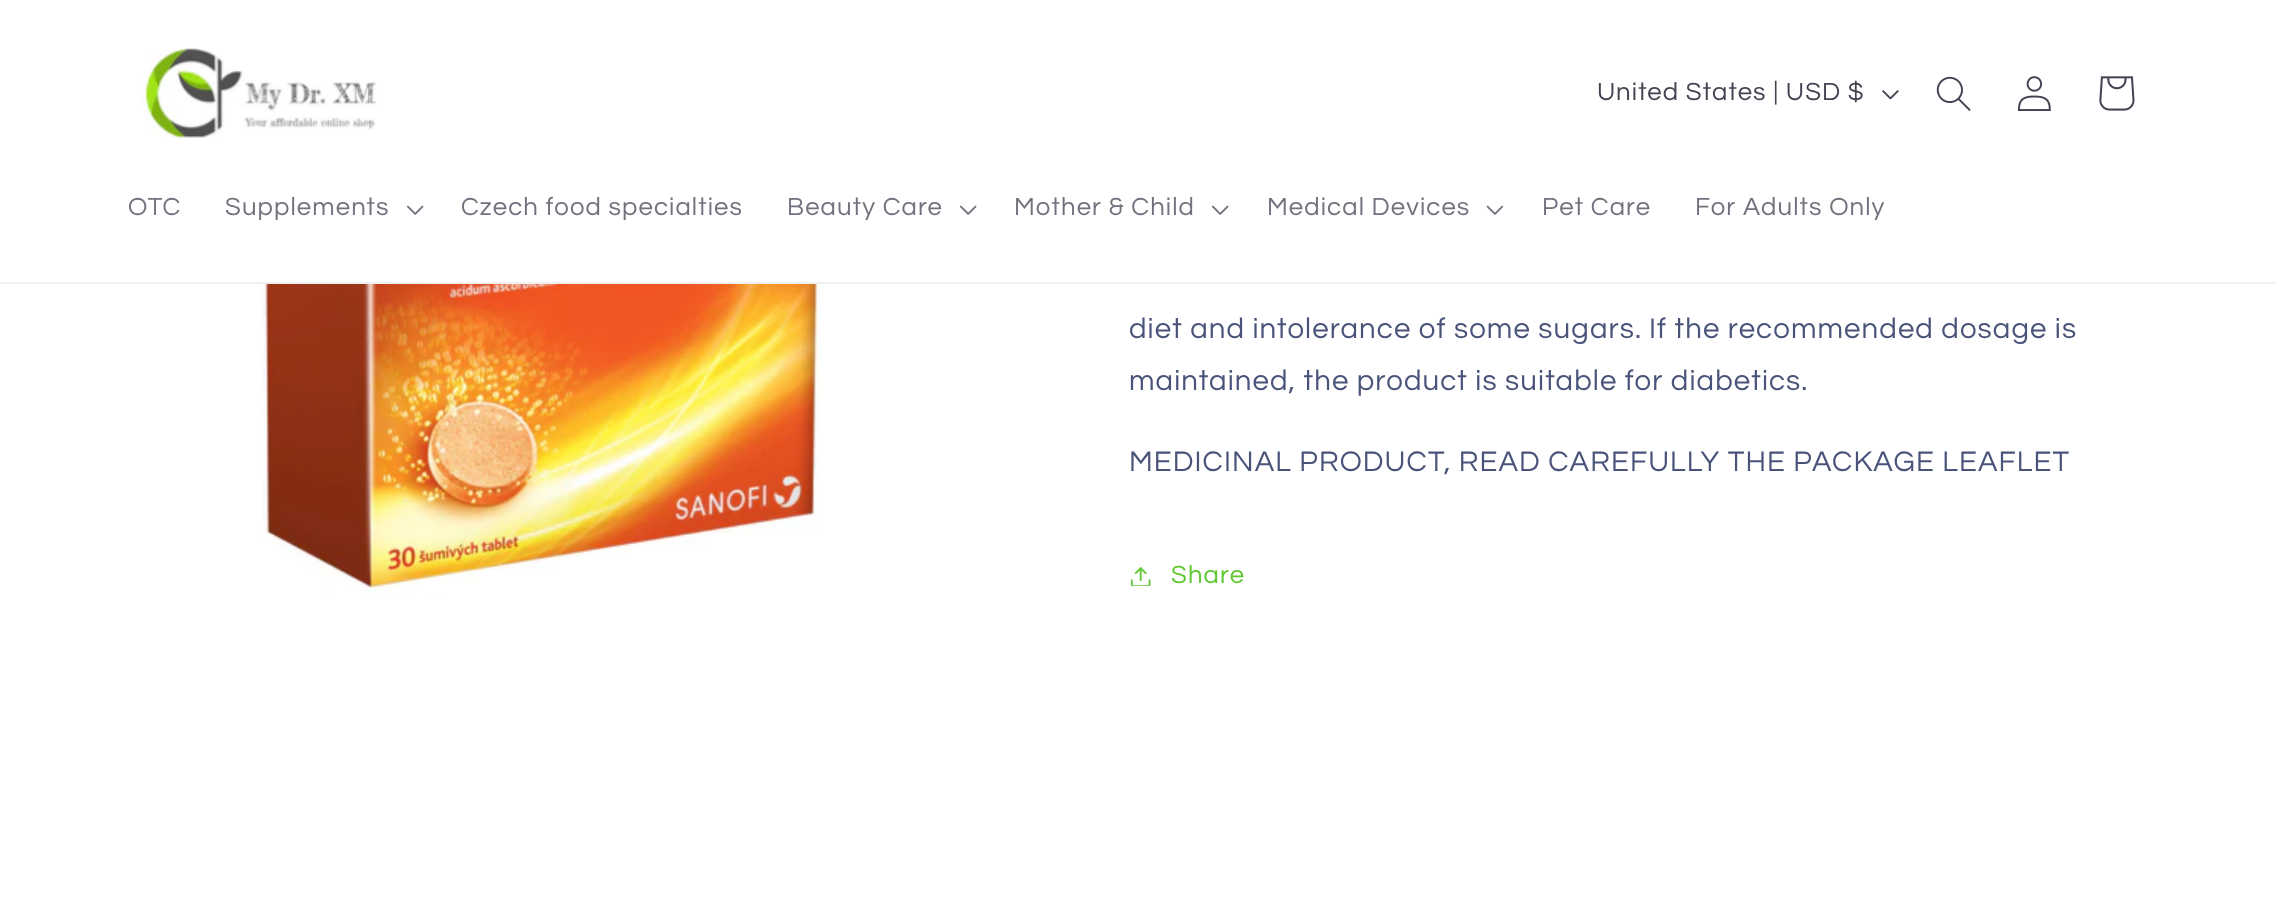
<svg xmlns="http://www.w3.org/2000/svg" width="2276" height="908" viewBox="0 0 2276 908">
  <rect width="100%" height="100%" fill="#fff"/>
  <path d="M0 282h2276v2H0z" fill="#f0f0f1"/>
  <image x="141" y="48" width="236" height="90" href="img/1.png"/>
  <image x="1882" y="90" width="17" height="10" href="img/2.png"/>
  <image x="1936" y="76" width="35" height="35" href="img/3.png"/>
  <image x="2017" y="76" width="34" height="35" href="img/4.png"/>
  <image x="2099" y="76" width="36" height="35" href="img/5.png"/>
  <image x="407" y="205" width="17" height="10" href="img/6.png"/>
  <image x="960" y="205" width="17" height="10" href="img/6.png"/>
  <image x="1212" y="205" width="17" height="10" href="img/6.png"/>
  <image x="1486" y="205" width="18" height="10" href="img/7.png"/>
  <image x="261" y="284" width="561" height="310" href="img/8.png"/>
  <image x="1130" y="567" width="21" height="19" href="img/9.png"/>
  <text x="1597" y="100" font-family="Questrial" font-size="25.75" letter-spacing="1.1" fill="#414351">United States | USD $</text>
  <g font-family="Questrial" font-size="25.75" letter-spacing="1.1" fill="#71727d">
    <text x="128" y="215">OTC</text>
    <text x="225" y="215">Supplements</text>
    <text x="461" y="215">Czech food specialties</text>
    <text x="787" y="215">Beauty Care</text>
    <text x="1014" y="215">Mother &amp; Child</text>
    <text x="1267" y="215">Medical Devices</text>
    <text x="1542" y="215">Pet Care</text>
    <text x="1695" y="215">For Adults Only</text>
  </g>
  <g font-family="Questrial" font-size="29.4" letter-spacing="1.1" fill="#4a547a">
    <text x="1129" y="338">diet and intolerance of some sugars.</text>
    <text x="1649" y="338">If the recommended dosage is</text>
    <text x="1129" y="390">maintained, the product is suitable for diabetics.</text>
    <text x="1129" y="471">MEDICINAL PRODUCT, READ CAREFULLY THE PACKAGE LEAFLET</text>
  </g>
  <text x="1171" y="583" font-family="Questrial" font-size="25.75" letter-spacing="1.1" fill="#5ec731">Share</text>
</svg>
